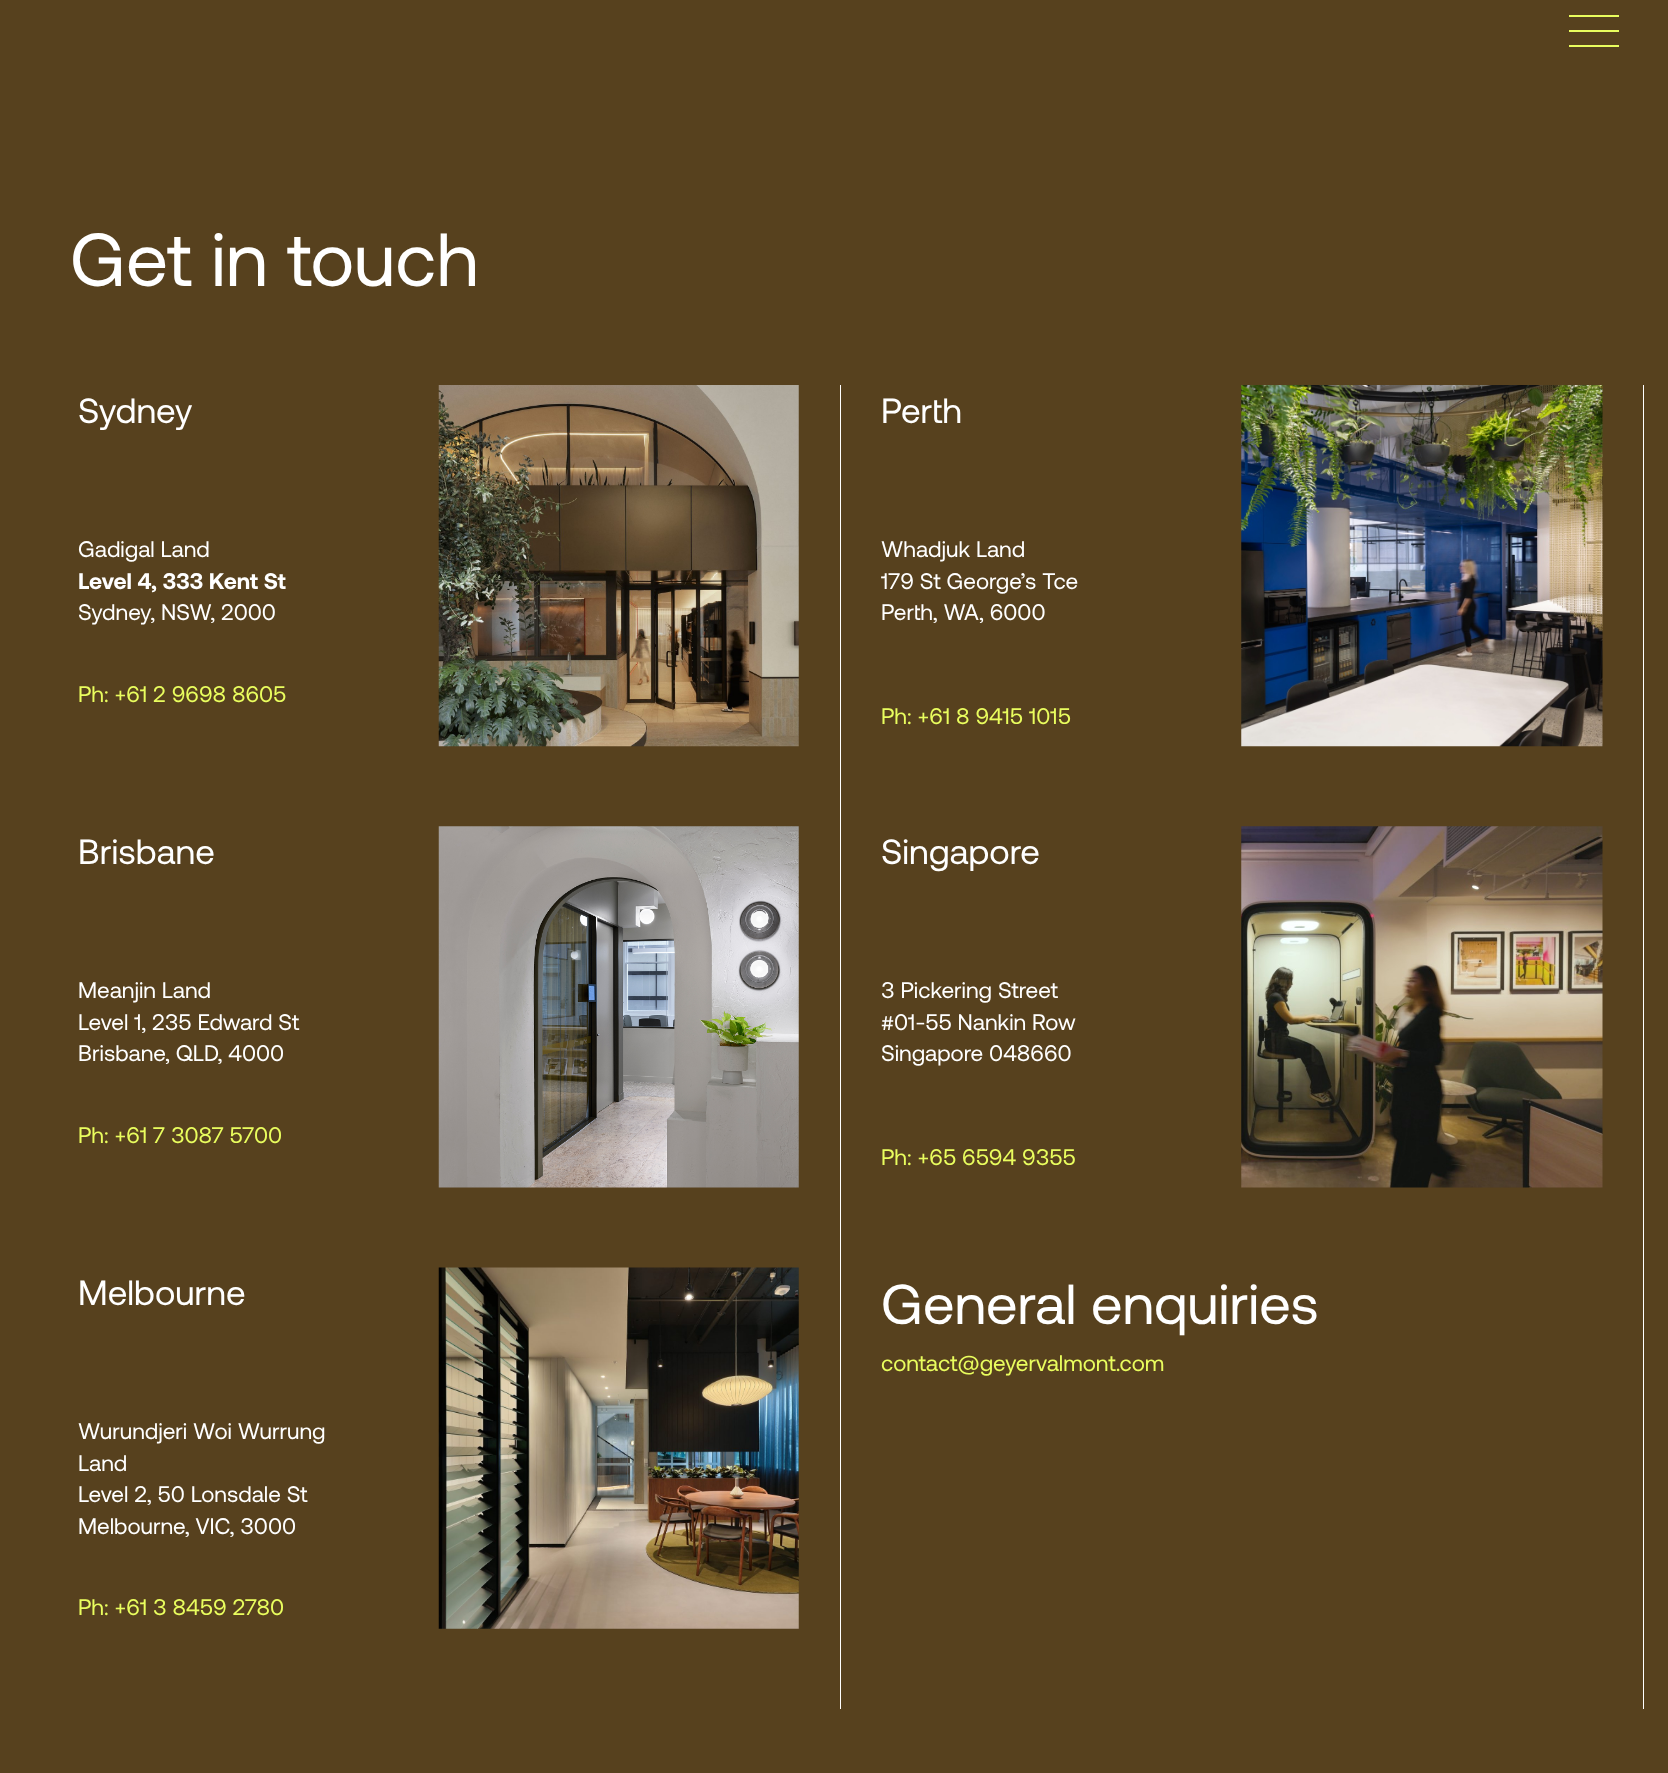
<svg xmlns="http://www.w3.org/2000/svg" width="1668" height="1773" viewBox="0 0 1668 1773">
  <rect width="100%" height="100%" fill="#57411e"/>
  <path d="M1569 15V17H1619V15ZM1569 30V32H1619V30ZM1569 45V47H1619V45Z" fill="#e9fd5e"/>
  <path d="M840 385h1v1324H840z" fill="#fff"/>
  <image x="438" y="385" width="361" height="362" href="img/1.png"/>
  <path d="M1643 385h1v1324H1643z" fill="#fff"/>
  <image x="1241" y="385" width="362" height="362" href="img/2.png"/>
  <image x="438" y="826" width="361" height="362" href="img/3.png"/>
  <image x="1241" y="826" width="362" height="362" href="img/4.png"/>
  <image x="438" y="1267" width="361" height="362" href="img/5.png"/>
  <text x="70" y="286" font-family="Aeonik" font-size="75" fill="#fff">Get in touch</text>
  <text x="78" y="423" font-family="Aeonik" font-size="35" fill="#fff">Sydney</text>
  <text x="78" y="557" font-family="Aeonik" font-size="22.5" fill="#fff">Gadigal Land</text>
  <text x="78" y="589" font-family="Aeonik" font-size="22.5" font-weight="bold" fill="#fff">Level 4, 333 Kent St</text>
  <text x="78" y="620" font-family="Aeonik" font-size="22.5" fill="#fff">Sydney, NSW, 2000</text>
  <text x="78" y="702" font-family="Aeonik" font-size="22.5" fill="#e9fd5e">Ph: +61 2 9698 8605</text>
  <text x="881" y="423" font-family="Aeonik" font-size="35" fill="#fff">Perth</text>
  <g font-family="Aeonik" font-size="22.5" fill="#fff">
    <text x="881" y="557">Whadjuk Land</text>
    <text x="881" y="589">179 St George’s Tce</text>
    <text x="881" y="620">Perth, WA, 6000</text>
  </g>
  <text x="881" y="724" font-family="Aeonik" font-size="22.5" fill="#e9fd5e">Ph: +61 8 9415 1015</text>
  <text x="78" y="864" font-family="Aeonik" font-size="35" fill="#fff">Brisbane</text>
  <g font-family="Aeonik" font-size="22.5" fill="#fff">
    <text x="78" y="998">Meanjin Land</text>
    <text x="78" y="1030">Level 1, 235 Edward St</text>
    <text x="78" y="1061">Brisbane, QLD, 4000</text>
  </g>
  <text x="78" y="1143" font-family="Aeonik" font-size="22.5" fill="#e9fd5e">Ph: +61 7 3087 5700</text>
  <text x="881" y="864" font-family="Aeonik" font-size="35" fill="#fff">Singapore</text>
  <g font-family="Aeonik" font-size="22.5" fill="#fff">
    <text x="881" y="998">3 Pickering Street</text>
    <text x="881" y="1030">#01-55 Nankin Row</text>
    <text x="881" y="1061">Singapore 048660</text>
  </g>
  <text x="881" y="1165" font-family="Aeonik" font-size="22.5" fill="#e9fd5e">Ph: +65 6594 9355</text>
  <text x="78" y="1305" font-family="Aeonik" font-size="35" fill="#fff">Melbourne</text>
  <g font-family="Aeonik" font-size="22.5" fill="#fff">
    <text x="78" y="1439">Wurundjeri Woi Wurrung</text>
    <text x="78" y="1471">Land</text>
    <text x="78" y="1502">Level 2, 50 Lonsdale St</text>
    <text x="78" y="1534">Melbourne, VIC, 3000</text>
  </g>
  <text x="78" y="1615" font-family="Aeonik" font-size="22.5" fill="#e9fd5e">Ph: +61 3 8459 2780</text>
  <text x="881" y="1324" font-family="Aeonik" font-size="56.25" fill="#fff">General enquiries</text>
  <text x="881" y="1371" font-family="Aeonik" font-size="22.5" fill="#e9fd5e">contact@geyervalmont.com</text>
</svg>
